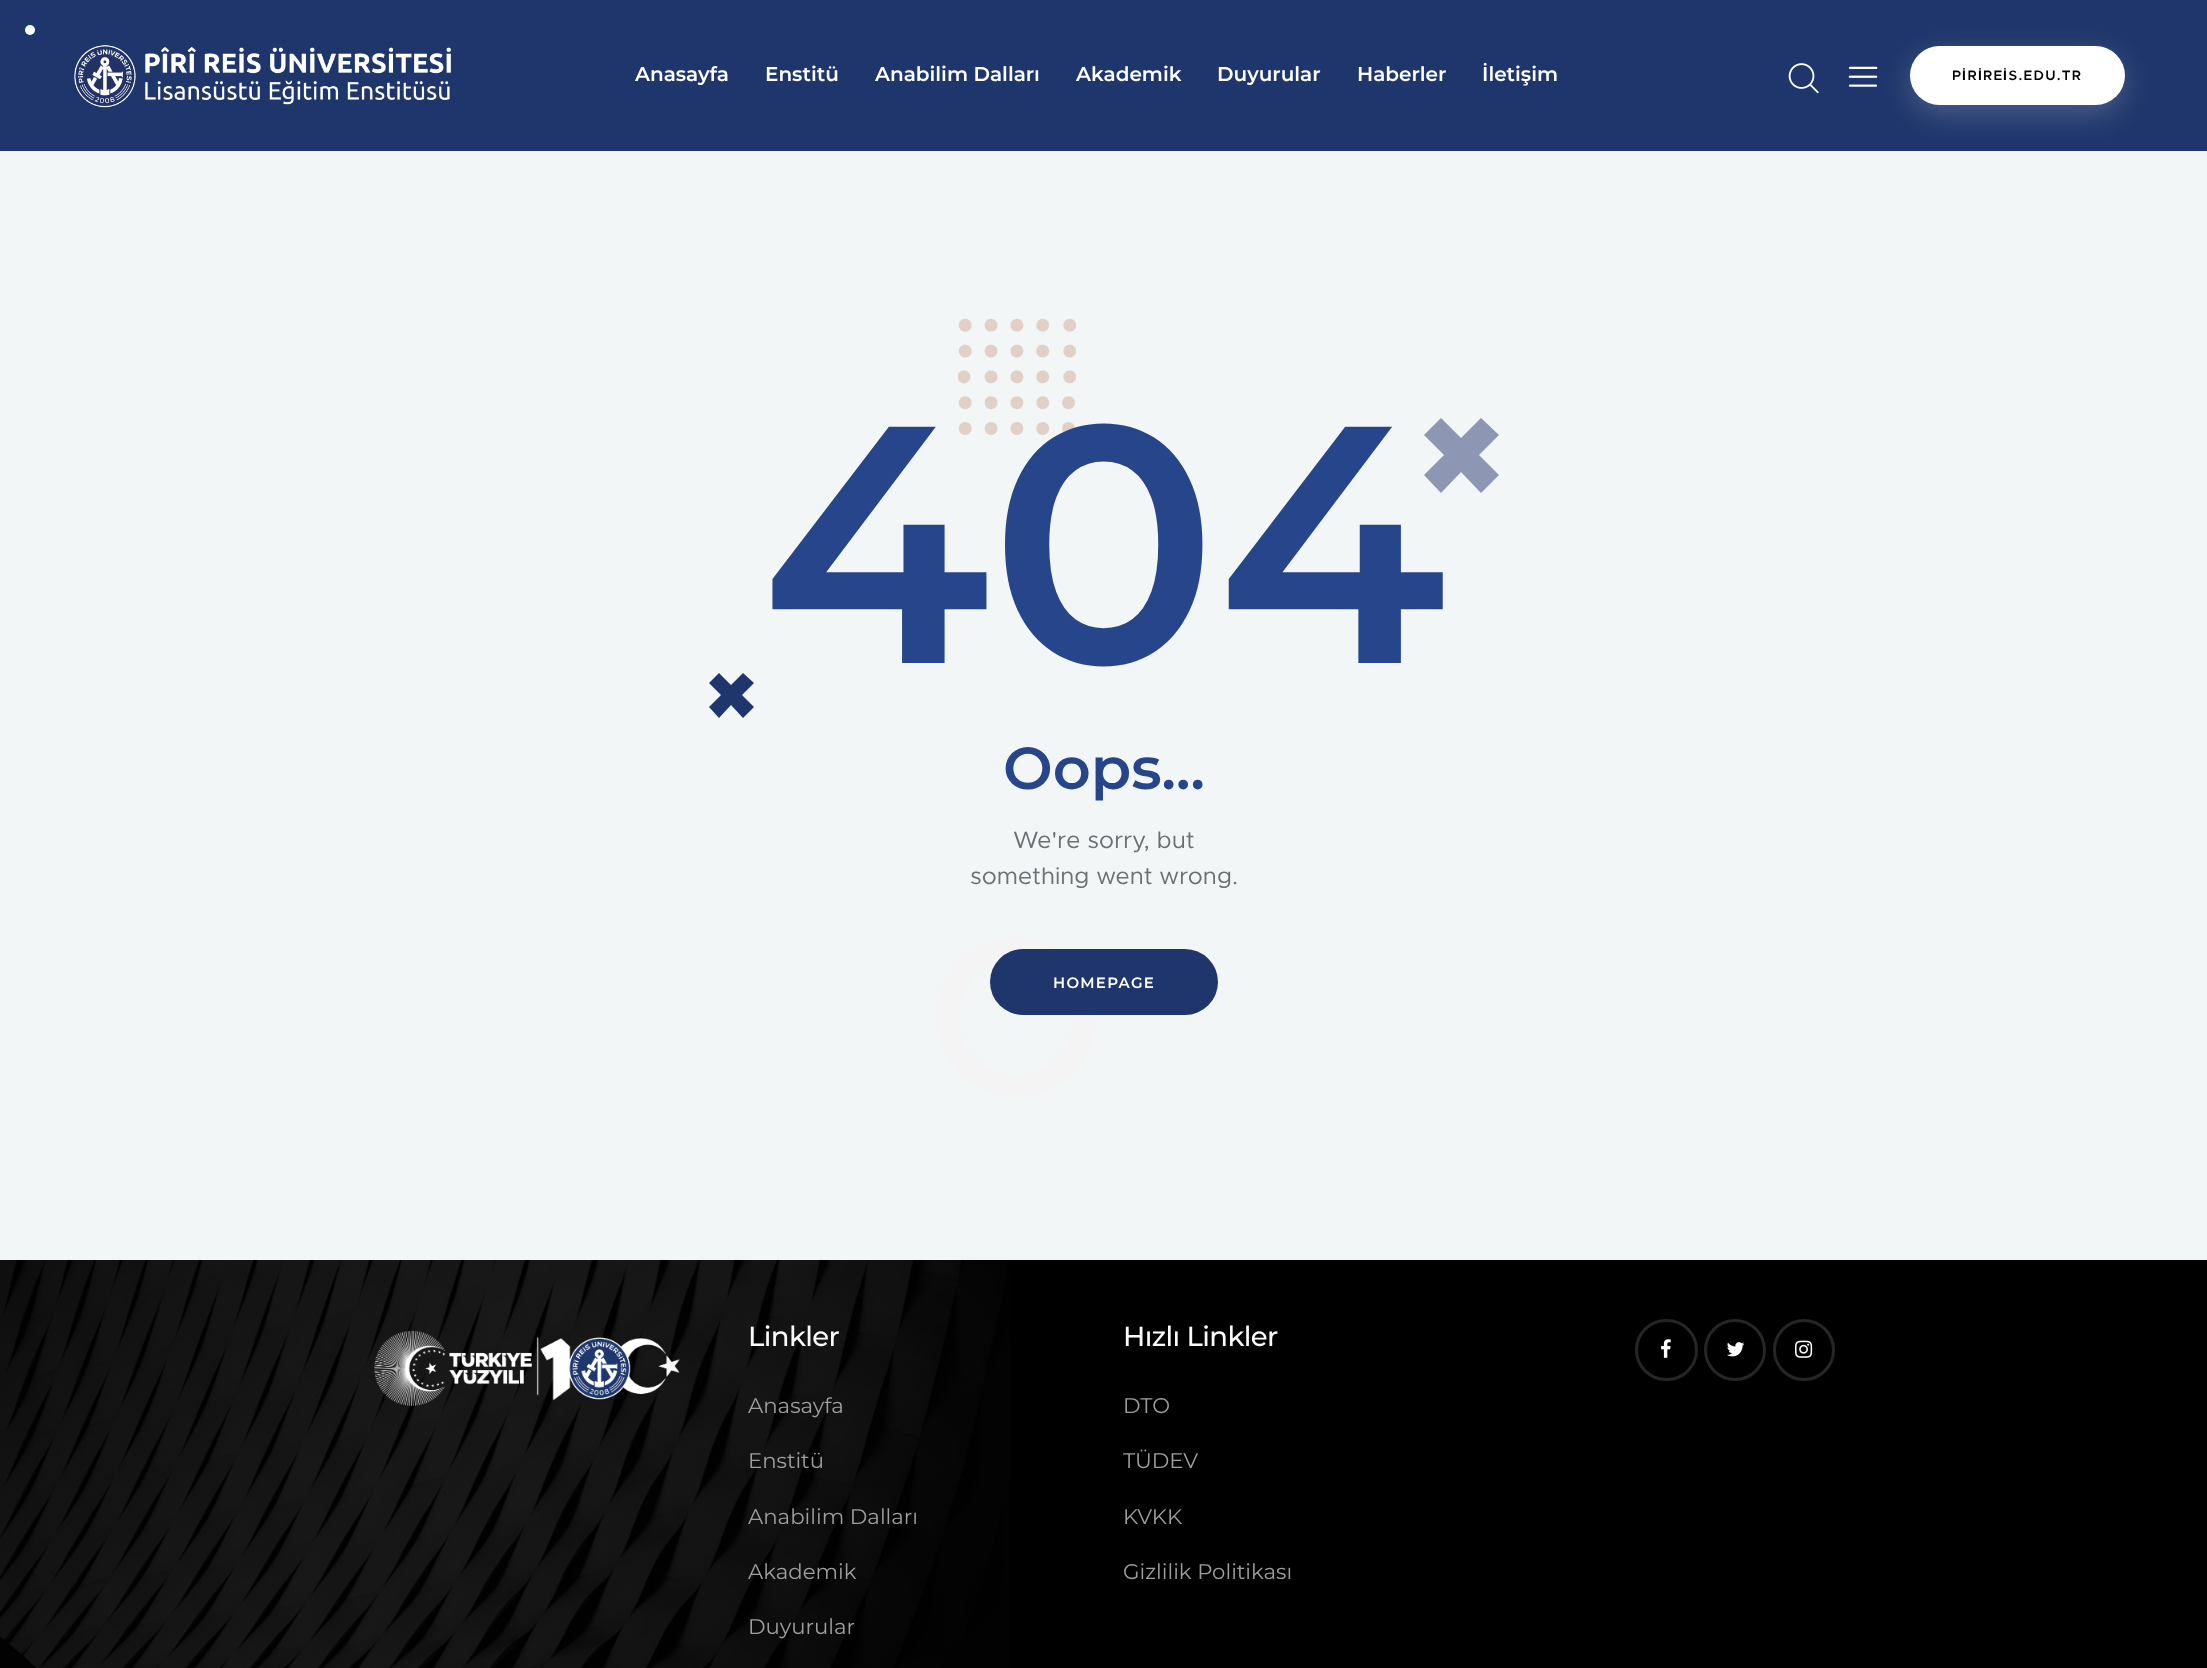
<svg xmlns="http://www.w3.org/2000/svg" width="2207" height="1668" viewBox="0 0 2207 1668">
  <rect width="100%" height="100%" fill="#f2f6f7"/>
  <path d="M0 0h2207v151H0z" fill="#1e366c"/>
  <circle cx="30" cy="30" r="5" fill="#fff"/>
  <image x="74" y="45" width="377" height="63" href="img/1.png"/>
  <image x="1788" y="63" width="31" height="31" href="img/2.png"/>
  <image x="1848" y="66" width="30" height="21" href="img/3.png"/>
  <rect x="1910" y="55" width="215" height="59" rx="29.5" fill="#ffffff33" filter="blur(15.5px)"/>
  <rect x="1910" y="46" width="215" height="59" rx="29.5" fill="#fff"/>
  <image x="958" y="318" width="118" height="117" href="img/4.png"/>
  <path d="M1424 475L1444 455L1424 435L1441 418L1461 438L1481 418L1499 435L1479 455L1499 475L1481 493L1461 472L1441 493Z" fill="#8d96b2"/>
  <path d="M709 707L721 695L709 683L719 673L731 685L743 673L754 683L742 695L754 707L743 718L731 705L719 718Z" fill="#1e366c"/>
  <circle cx="1016" cy="1017.5" r="68.5" fill="none" stroke="#f3f4f3" stroke-width="21.6"/>
  <rect x="990" y="949" width="228" height="66" rx="33" fill="#1e366c"/>
  <image x="0" y="1260" width="2207" height="408" href="img/5.png"/>
  <image x="374" y="1330" width="306" height="76" href="img/6.png"/>
  <rect x="1636.5" y="1320.5" width="60" height="59" rx="29.5" fill="none" stroke="#262626" stroke-width="3"/>
  <image x="1661" y="1339" width="10" height="19" href="img/7.png"/>
  <circle cx="1735" cy="1350" r="29.5" fill="none" stroke="#262626" stroke-width="3"/>
  <image x="1727" y="1342" width="18" height="15" href="img/8.png"/>
  <circle cx="1804" cy="1350" r="29.5" fill="none" stroke="#262626" stroke-width="3"/>
  <image x="1795" y="1340" width="18" height="18" href="img/9.png"/>
  <g font-family="Montserrat" font-size="20" font-weight="600" fill="#fff">
    <text x="635" y="81">Anasayfa</text>
    <text x="765" y="81">Enstitü</text>
    <text x="875" y="81">Anabilim Dalları</text>
    <text x="1076" y="81">Akademik</text>
    <text x="1217" y="81">Duyurular</text>
    <text x="1357" y="81">Haberler</text>
    <text x="1482" y="81">İletişim</text>
  </g>
  <text x="1952" y="80" font-family="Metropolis" font-size="13.75" font-weight="600" letter-spacing="1.25" fill="#000">P R RE S.EDU.TR</text>
  <g font-family="Liberation Sans" font-size="13.75" font-weight="bold" letter-spacing="1.25" fill="#000">
    <text x="2003" y="80">İ</text>
    <text x="1978" y="80">İ</text>
    <text x="1962" y="80">İ</text>
  </g>
  <text x="761" y="663" font-family="Montserrat" font-size="337.5" font-weight="600" fill="#27458b">404</text>
  <text x="1003" y="789" font-family="Montserrat" font-size="59" font-weight="600" fill="#27458b">Oops...</text>
  <g font-family="Metropolis" font-size="23.75" fill="#6c6f73">
    <text x="1013" y="848">We're sorry, but</text>
    <text x="970" y="884">something went wrong.</text>
  </g>
  <text x="1053" y="988" font-family="Montserrat" font-size="15" font-weight="600" letter-spacing="1.25" fill="#fff">HOMEPAGE</text>
  <text x="748" y="1346" font-family="Montserrat" font-size="27.5" font-weight="500" letter-spacing="-0.6" fill="#f9f9f9">Linkler</text>
  <g font-family="Montserrat" font-size="21.25" fill="#9f9f9f">
    <text x="748" y="1413">Anasayfa</text>
    <text x="748" y="1468">Enstitü</text>
    <text x="748" y="1524">Anabilim Dalları</text>
    <text x="748" y="1579">Akademik</text>
    <text x="748" y="1634">Duyurular</text>
  </g>
  <text x="1123" y="1346" font-family="Montserrat" font-size="27.5" font-weight="500" letter-spacing="-0.6" fill="#f9f9f9">Hızlı Linkler</text>
  <g font-family="Montserrat" font-size="21.25" fill="#9f9f9f">
    <text x="1123" y="1413">DTO</text>
    <text x="1123" y="1468">TÜDEV</text>
    <text x="1123" y="1524">KVKK</text>
    <text x="1123" y="1579">Gizlilik Politikası</text>
  </g>
</svg>
